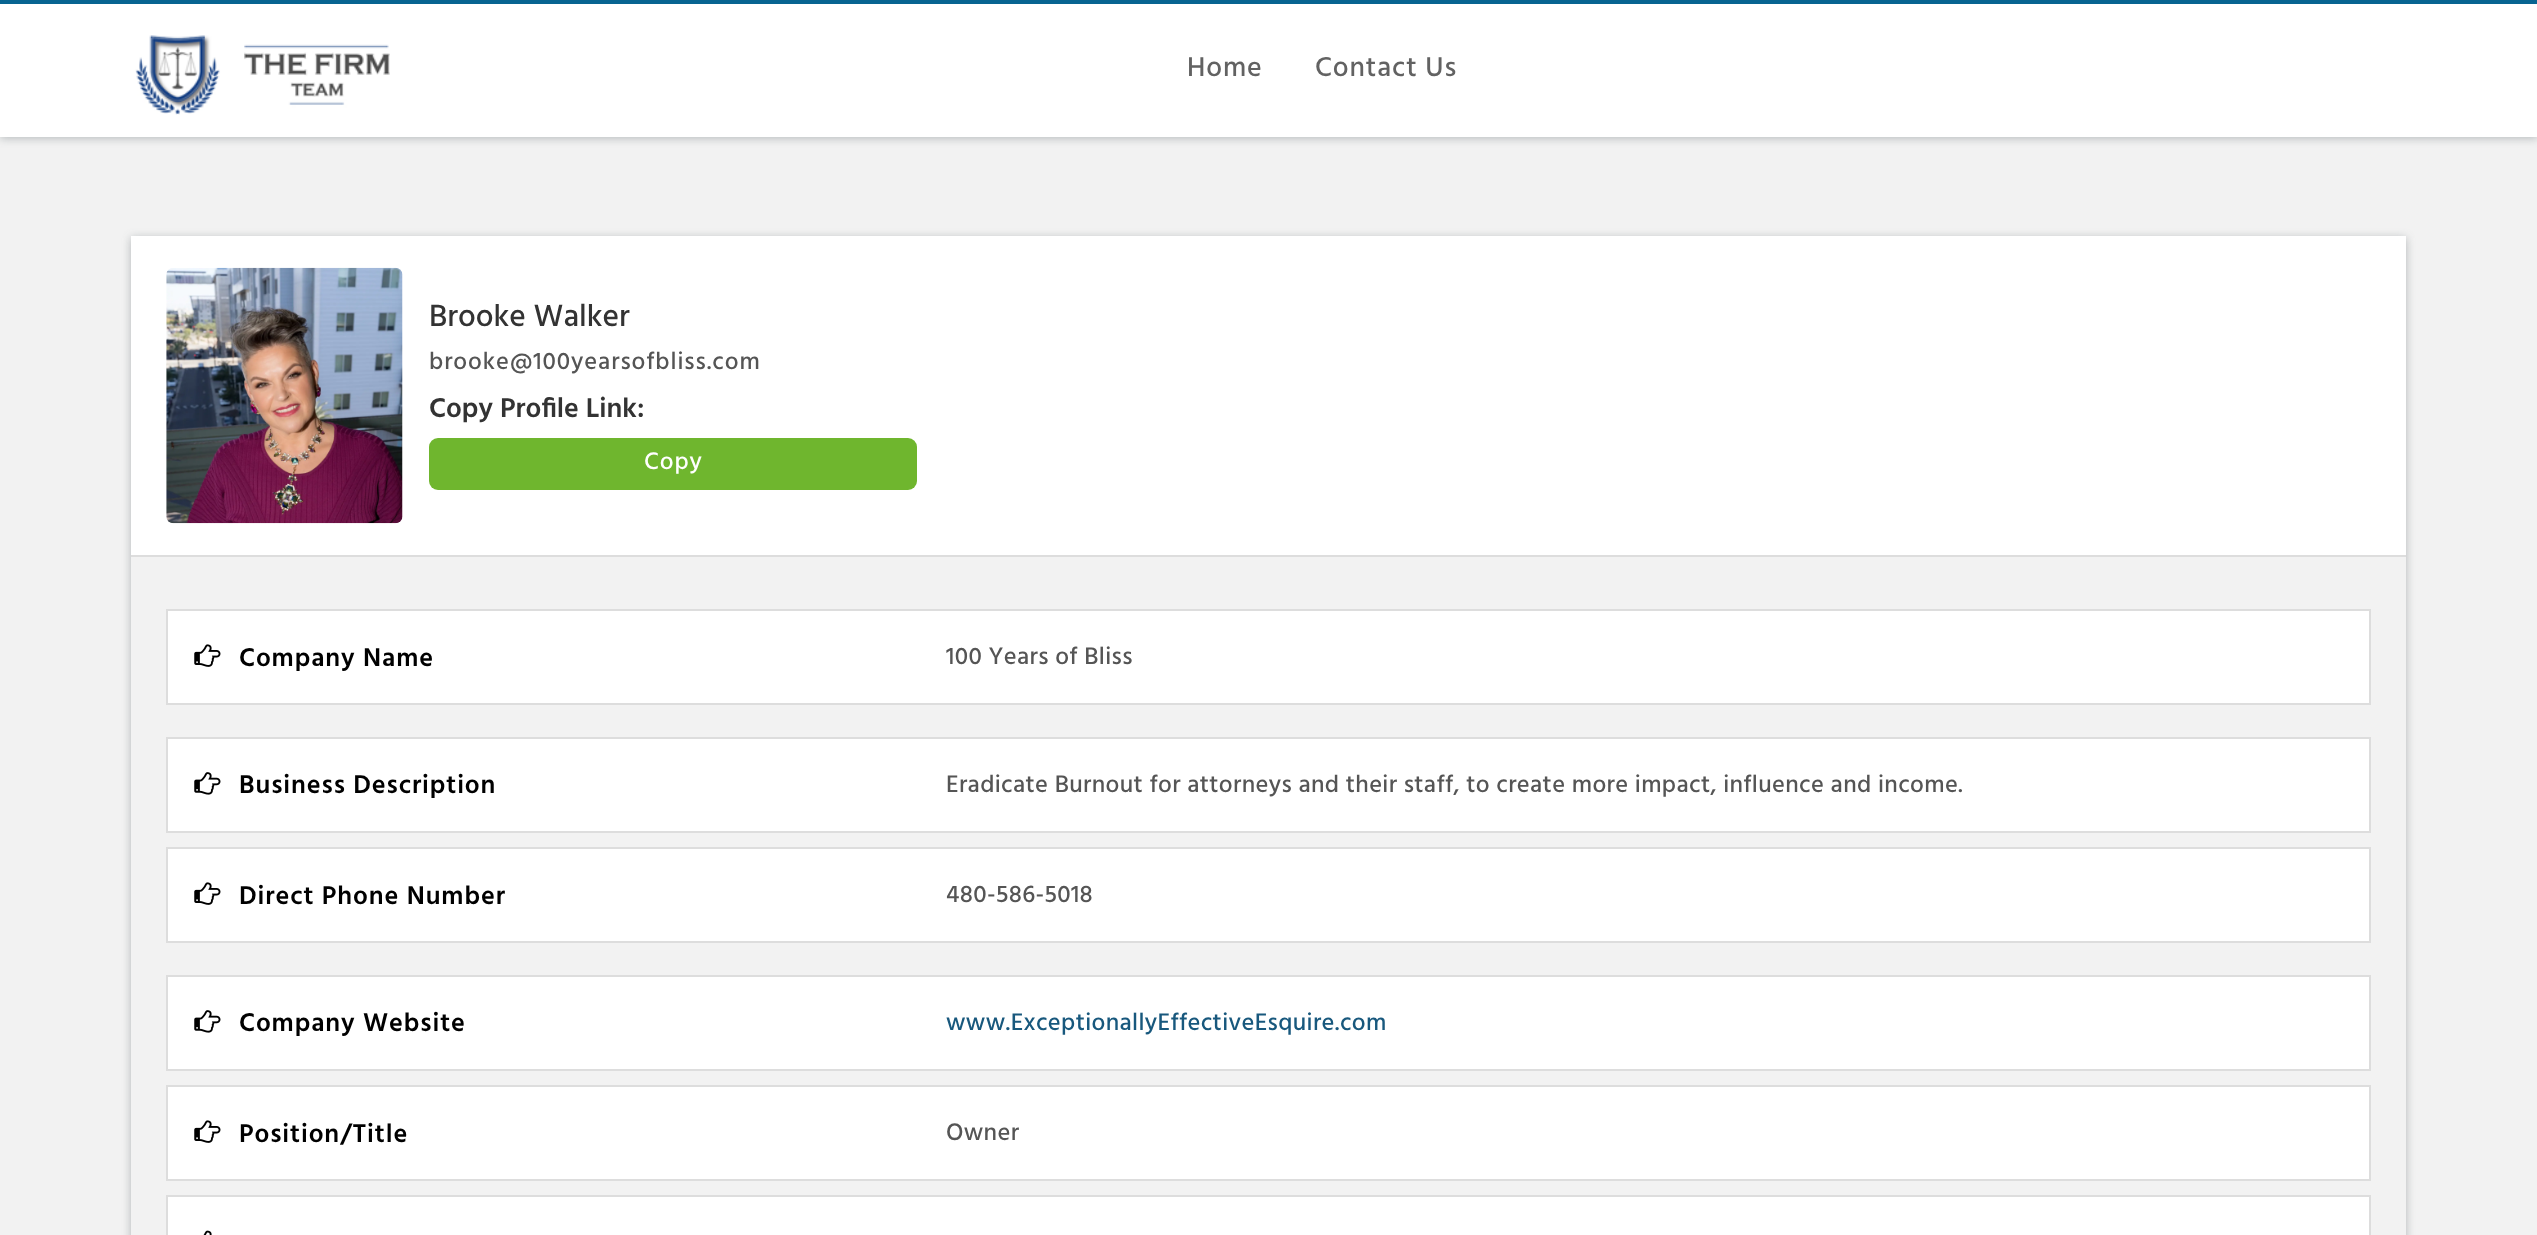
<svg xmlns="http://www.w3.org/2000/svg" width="2537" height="1235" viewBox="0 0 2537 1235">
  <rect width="100%" height="100%" fill="#f2f2f2"/>
  <path d="M0 2h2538v136H0z" fill="#39494c59" filter="blur(5px)"/>
  <path d="M0 4h2537v133H0z" fill="#fff"/>
  <path d="M0 0h2537v4H0z" fill="#076491"/>
  <image x="135" y="35" width="255" height="80" href="img/1.png"/>
  <path d="M131 238h2275v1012H131z" fill="#39494c59" filter="blur(5px)"/>
  <path d="M131 236h2275v319H131z" fill="#fff"/>
  <path d="M131 555h2275v2H131z" fill="#ddd"/>
  <image x="166" y="267" width="237" height="257" href="img/2.png"/>
  <rect x="429" y="438" width="488" height="52" rx="9" fill="#6fb62e"/>
  <path d="M131 557h2275v678H131z" fill="#f2f2f2"/>
  <path d="M167 610h2203v94H167z" fill="#fff" stroke="#ddd" stroke-width="2"/>
  <image x="194" y="644" width="27" height="23" href="img/3.png"/>
  <path d="M167 738h2203v94H167z" fill="#fff" stroke="#ddd" stroke-width="2"/>
  <image x="194" y="772" width="27" height="23" href="img/4.png"/>
  <path d="M167 848h2203v94H167z" fill="#fff" stroke="#ddd" stroke-width="2"/>
  <image x="194" y="882" width="27" height="23" href="img/3.png"/>
  <path d="M167 976h2203v94H167z" fill="#fff" stroke="#ddd" stroke-width="2"/>
  <image x="194" y="1010" width="27" height="23" href="img/4.png"/>
  <path d="M167 1086h2203v94H167z" fill="#fff" stroke="#ddd" stroke-width="2"/>
  <image x="194" y="1120" width="27" height="23" href="img/3.png"/>
  <path d="M167 1196h2203v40H167z" fill="#fff" stroke="#ddd" stroke-width="2"/>
  <image x="203" y="1230" width="9" height="5" href="img/5.png"/>
  <g font-family="Hind" font-size="28" font-weight="500" letter-spacing="0.9" fill="#626262">
    <text x="1187" y="76">Home</text>
    <text x="1315" y="76">Contact Us</text>
  </g>
  <text x="429" y="326" font-family="Hind" font-size="31.5" font-weight="500" fill="#333">Brooke Walker</text>
  <text x="429" y="369" font-family="Hind" font-size="24.5" font-weight="500" letter-spacing="0.9" fill="#555">brooke@100yearsofbliss.com</text>
  <text x="429" y="417" font-family="Hind" font-size="28" font-weight="600" fill="#333">Copy Profile Link:</text>
  <text x="644" y="469" font-family="Hind" font-size="24.5" font-weight="500" letter-spacing="0.9" fill="#fff">Copy</text>
  <text x="239" y="666" font-family="Hind" font-size="26.25" font-weight="600" letter-spacing="0.9" fill="#000">Company Name</text>
  <text x="946" y="664" font-family="Hind" font-size="24.5" font-weight="500" letter-spacing="0.35" fill="#555">100 Years of Bliss</text>
  <text x="239" y="793" font-family="Hind" font-size="26.25" font-weight="600" letter-spacing="0.9" fill="#000">Business Description</text>
  <text x="946" y="792" font-family="Hind" font-size="24.5" font-weight="500" letter-spacing="0.35" fill="#555">Eradicate Burnout for attorneys and their staff, to create more impact, influence and income.</text>
  <text x="239" y="904" font-family="Hind" font-size="26.25" font-weight="600" letter-spacing="0.9" fill="#000">Direct Phone Number</text>
  <text x="946" y="902" font-family="Hind" font-size="24.5" font-weight="500" letter-spacing="0.35" fill="#555">480-586-5018</text>
  <text x="239" y="1031" font-family="Hind" font-size="26.25" font-weight="600" letter-spacing="0.9" fill="#000">Company Website</text>
  <text x="946" y="1030" font-family="Hind" font-size="24.5" font-weight="500" letter-spacing="0.35" fill="#18587d">www.ExceptionallyEffectiveEsquire.com</text>
  <text x="239" y="1142" font-family="Hind" font-size="26.25" font-weight="600" letter-spacing="0.9" fill="#000">Position/Title</text>
  <text x="946" y="1140" font-family="Hind" font-size="24.5" font-weight="500" letter-spacing="0.35" fill="#555">Owner</text>
</svg>
